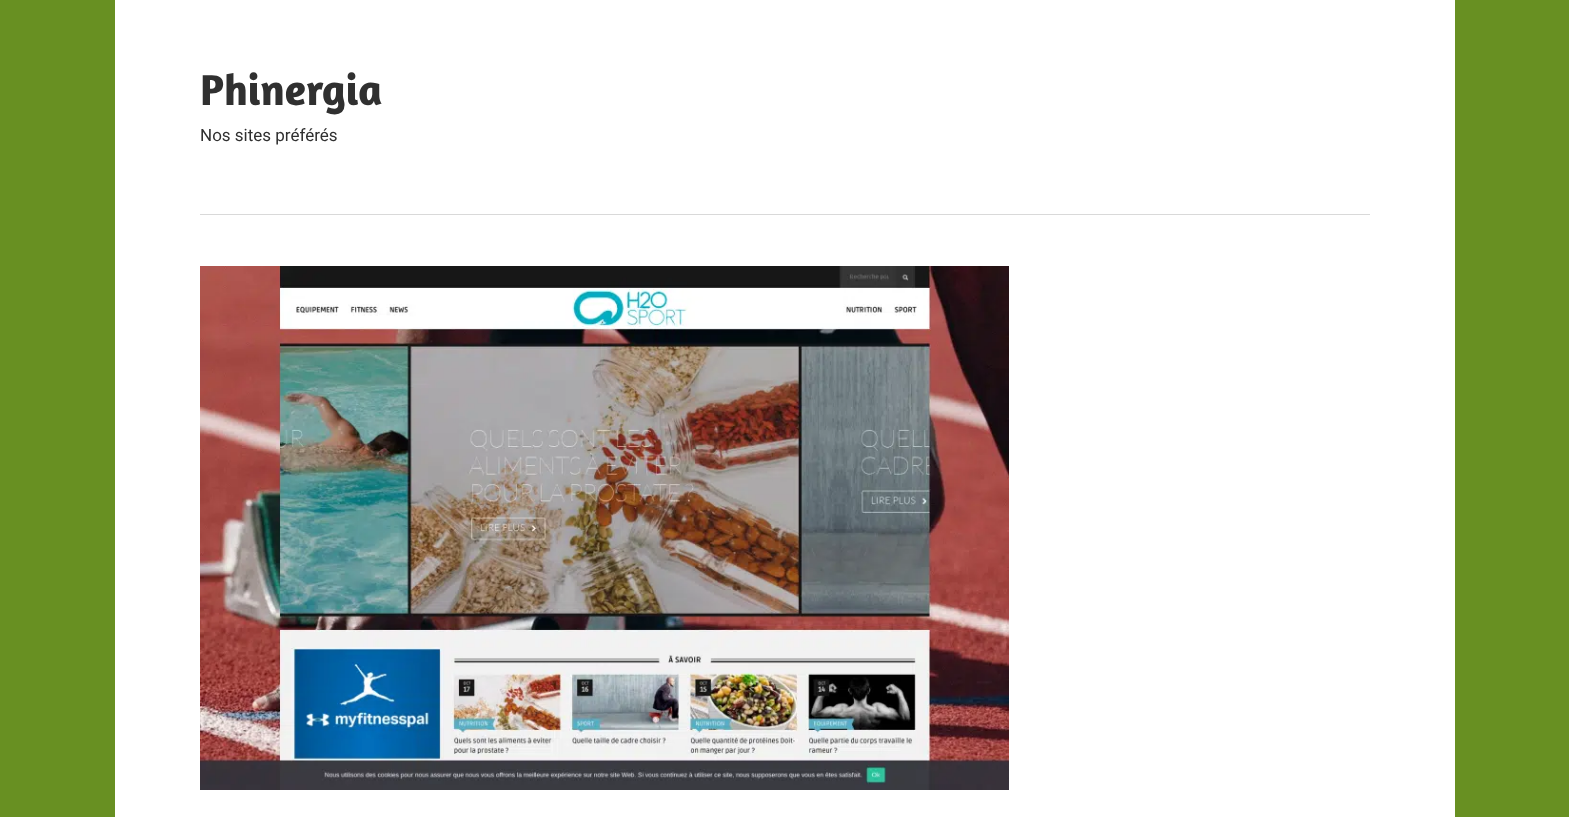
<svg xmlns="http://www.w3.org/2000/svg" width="1569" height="817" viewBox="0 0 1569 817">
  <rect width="100%" height="100%" fill="#689022"/>
  <path d="M115 0h1340v817H115z" fill="#fff"/>
  <path d="M200 214h1170v1H200z" fill="#d9d9d9"/>
  <image x="200" y="266" width="809" height="524" href="img/1.png"/>
  <text x="200" y="105" font-family="Amaranth" font-size="44" font-weight="bold" fill="#303030">Phinergia</text>
  <text x="200" y="141" font-family="Roboto" font-size="17" fill="#303030">Nos sites préférés</text>
</svg>
